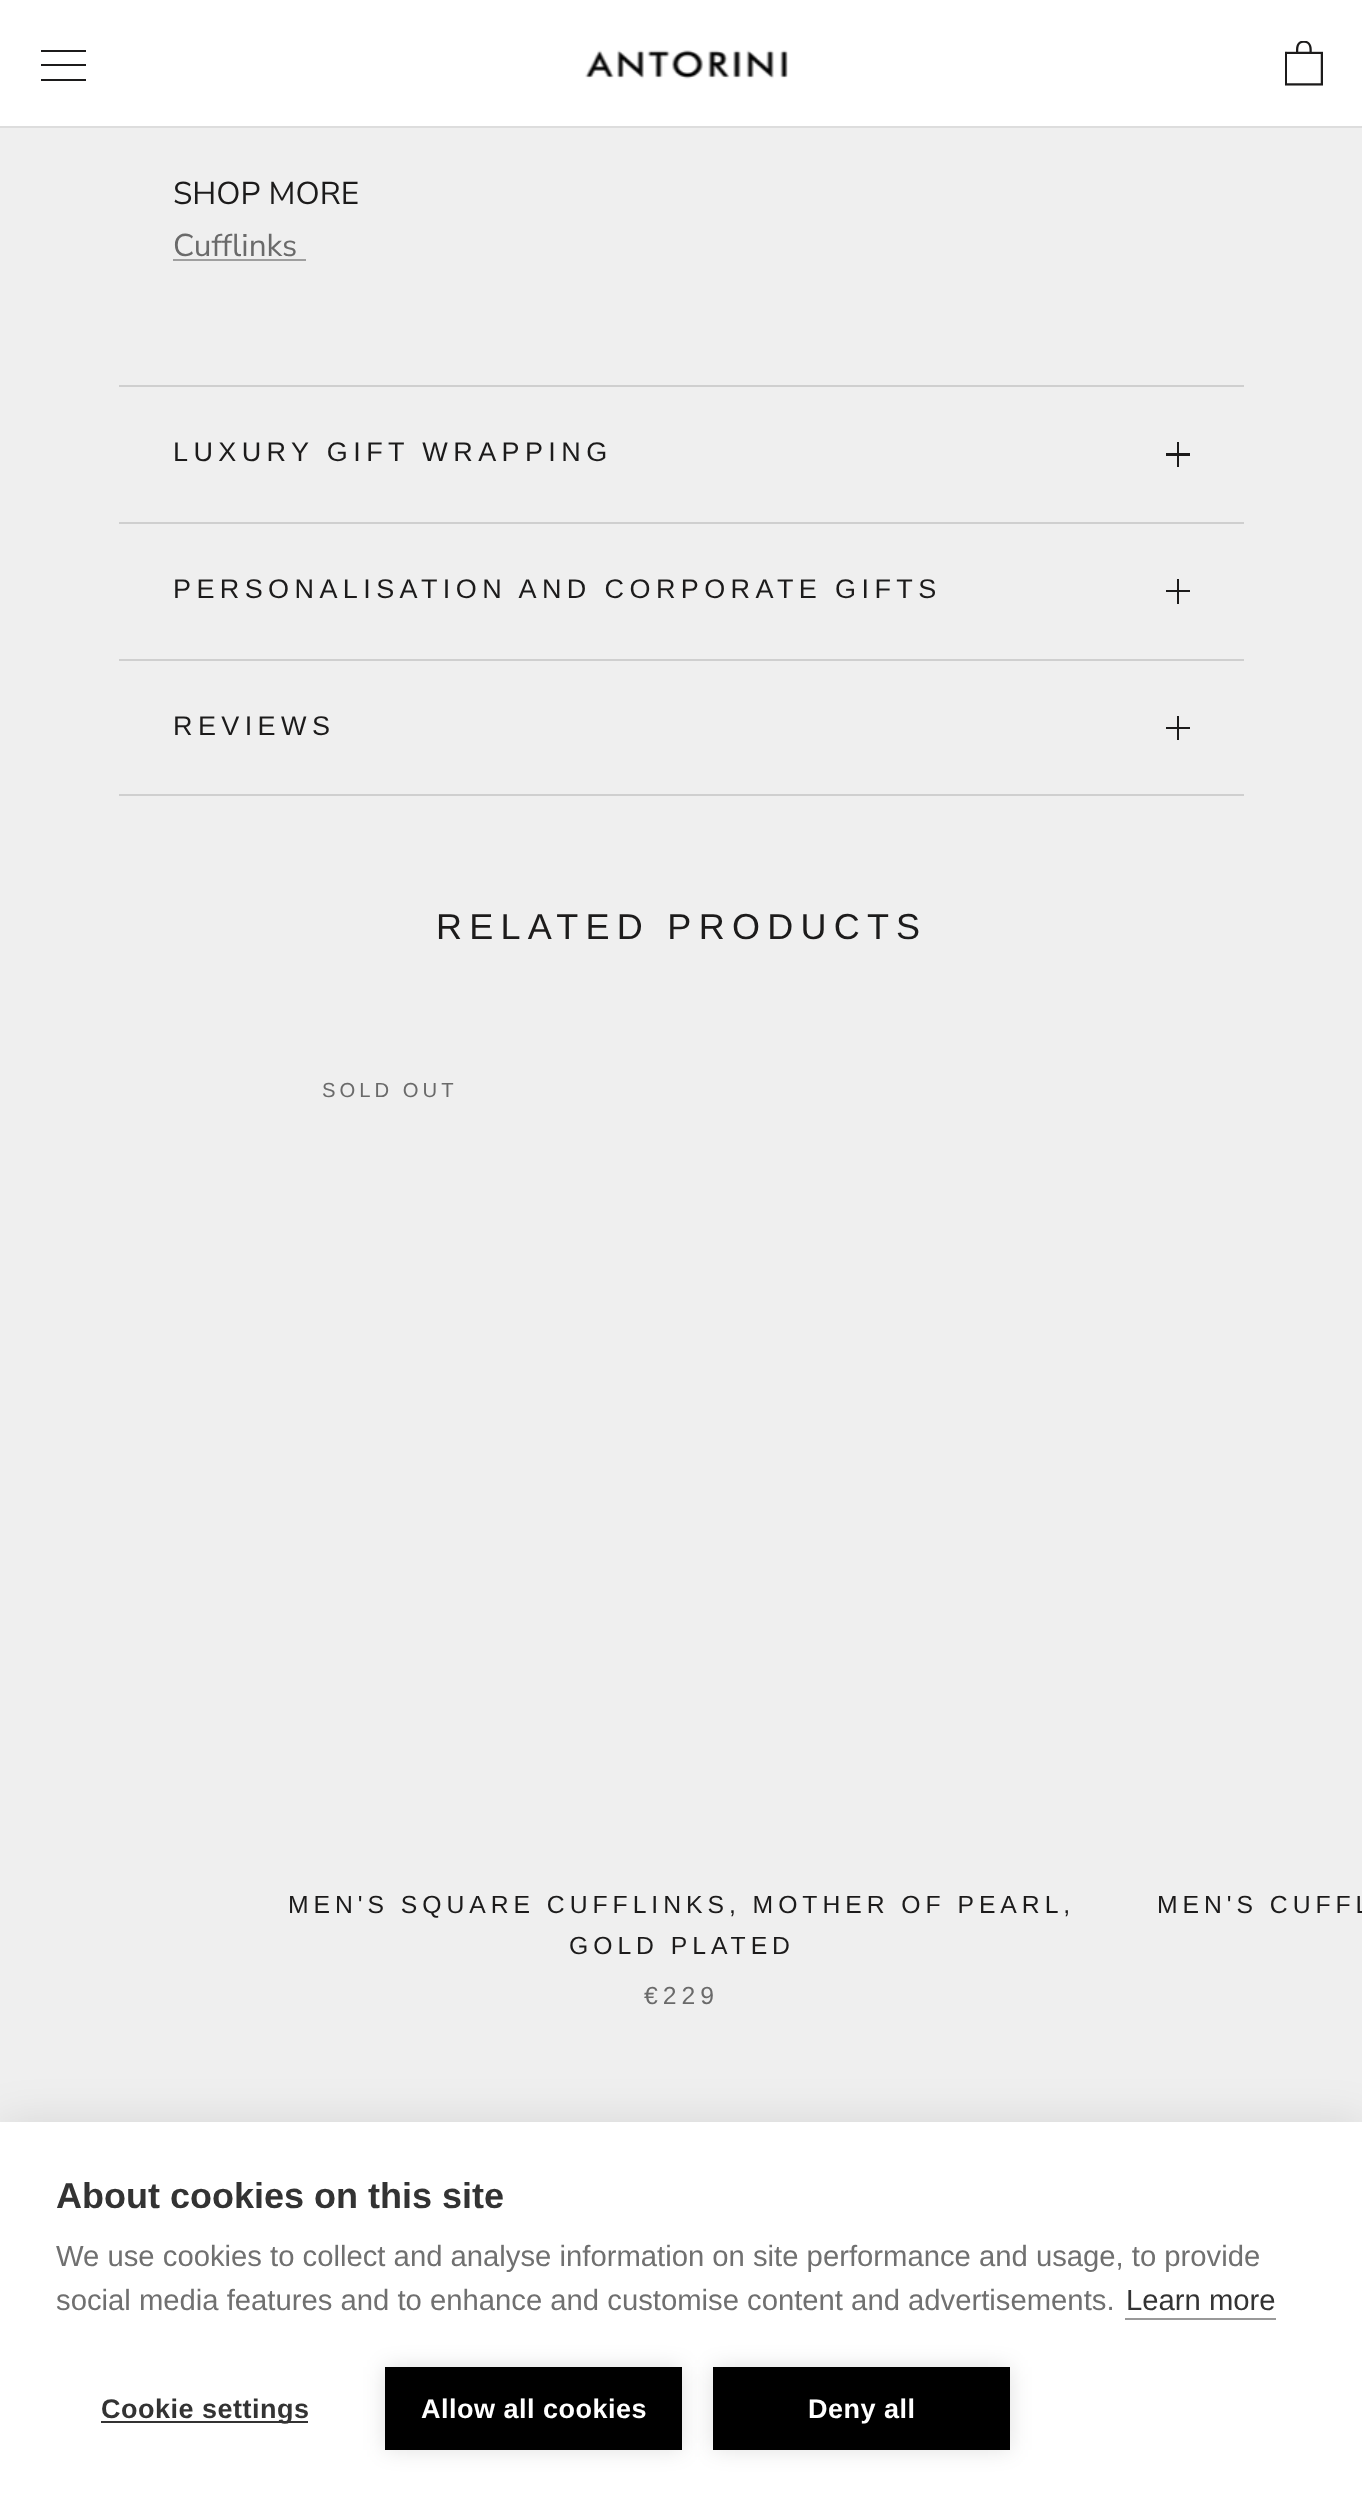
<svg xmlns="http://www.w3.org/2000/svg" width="1362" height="2505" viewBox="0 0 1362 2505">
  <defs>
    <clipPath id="clip1"><path d="M41 50h45v31H41z"/></clipPath>
  </defs>
  <rect width="100%" height="100%" fill="#efefef"/>
  <path d="M0 0h1362v126H0z" fill="#fff"/>
  <path d="M0 126h1362v2H0z" fill="#ddd"/>
  <g clip-path="url(#clip1)">
    <path d="M40 81V79H86V81ZM40 64H86V66H40ZM40 50H86V52H40Z" fill="#1c1b1b"/>
  </g>
  <image x="585" y="50" width="203" height="29" href="img/1.png"/>
  <image x="1285" y="41" width="38" height="45" href="img/2.png"/>
  <path d="M173 259h133v2H173z" fill="#9f9f9f"/>
  <path d="M119 385h1125v2H119z" fill="#cfcfcf"/>
  <path d="M119 522h1125v2H119z" fill="#cfcfcf"/>
  <path d="M1177 442h2v25H1177z" fill="#1c1b1b"/>
  <path d="M1166 453h24v3H1166z" fill="#1c1b1b"/>
  <path d="M119 659h1125v2H119z" fill="#cfcfcf"/>
  <path d="M1177 579h2v25H1177z" fill="#1c1b1b"/>
  <path d="M1166 590h24v2H1166z" fill="#1c1b1b"/>
  <path d="M119 794h1125v2H119z" fill="#cfcfcf"/>
  <path d="M1177 716h2v24H1177z" fill="#1c1b1b"/>
  <path d="M1166 727h24v2H1166z" fill="#1c1b1b"/>
  <path d="M0 2122h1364v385H0z" fill="#0000001a" filter="blur(22.5px)"/>
  <path d="M0 2122h1362v383H0z" fill="#fff"/>
  <path d="M1125 2318h151v2H1125z" fill="#999"/>
  <path d="M101 2421h207v2H101z" fill="#333"/>
  <path d="M385 2367h297v83H385z" fill="#0000001f" filter="blur(11px)"/>
  <path d="M385 2367h297v83H385z" fill="#000"/>
  <path d="M713 2367h297v83H713z" fill="#0000001f" filter="blur(11px)"/>
  <path d="M713 2367h297v83H713z" fill="#000"/>
  <text x="173" y="204" font-family="Nunito Sans" font-size="31.5" fill="#1c1b1b">SHOP MORE</text>
  <text x="173" y="256" font-family="Nunito Sans" font-size="31.5" fill="#6a6a6a">Cufflinks</text>
  <g font-family="Liberation Sans" font-size="27" letter-spacing="5.4" fill="#1c1b1b">
    <text x="173" y="461">LUXURY GIFT WRAPPING</text>
    <text x="173" y="598">PERSONALISATION AND CORPORATE GIFTS</text>
    <text x="173" y="735">REVIEWS</text>
  </g>
  <text x="436" y="939" font-family="Liberation Sans" font-size="36" letter-spacing="7.25" fill="#1c1b1b">RELATED PRODUCTS</text>
  <text x="322" y="1097" font-family="Liberation Sans" font-size="20.25" letter-spacing="4" fill="#6a6a6a">SOLD OUT</text>
  <g font-family="Liberation Sans" font-size="24.75" letter-spacing="4.95" fill="#1c1b1b">
    <text x="288" y="1913">MEN'S SQUARE CUFFLINKS, MOTHER OF PEARL,</text>
    <text x="569" y="1954">GOLD PLATED</text>
  </g>
  <text x="644" y="2004" font-family="Liberation Sans" font-size="24.75" letter-spacing="4.95" fill="#6a6a6a">€229</text>
  <text x="1157" y="1913" font-family="Liberation Sans" font-size="24.75" letter-spacing="4.95" fill="#1c1b1b">MEN'S CUFFL</text>
  <text x="56" y="2208" font-family="Liberation Sans" font-size="36" font-weight="bold" fill="#333">About cookies on this site</text>
  <g font-family="Liberation Sans" font-size="29.25" fill="#707070">
    <text x="56" y="2266">We use cookies to collect and analyse information on site performance and usage, to provide</text>
    <text x="56" y="2310">social media features and to enhance and customise content and advertisements.</text>
  </g>
  <text x="1126" y="2310" font-family="Liberation Sans" font-size="29.25" fill="#333">Learn more</text>
  <text x="101" y="2418" font-family="Liberation Sans" font-size="27" font-weight="bold" letter-spacing="0.5" fill="#333">Cookie settings</text>
  <g font-family="Liberation Sans" font-size="27" font-weight="bold" letter-spacing="0.5" fill="#fff">
    <text x="421" y="2418">Allow all cookies</text>
    <text x="808" y="2418">Deny all</text>
  </g>
</svg>
